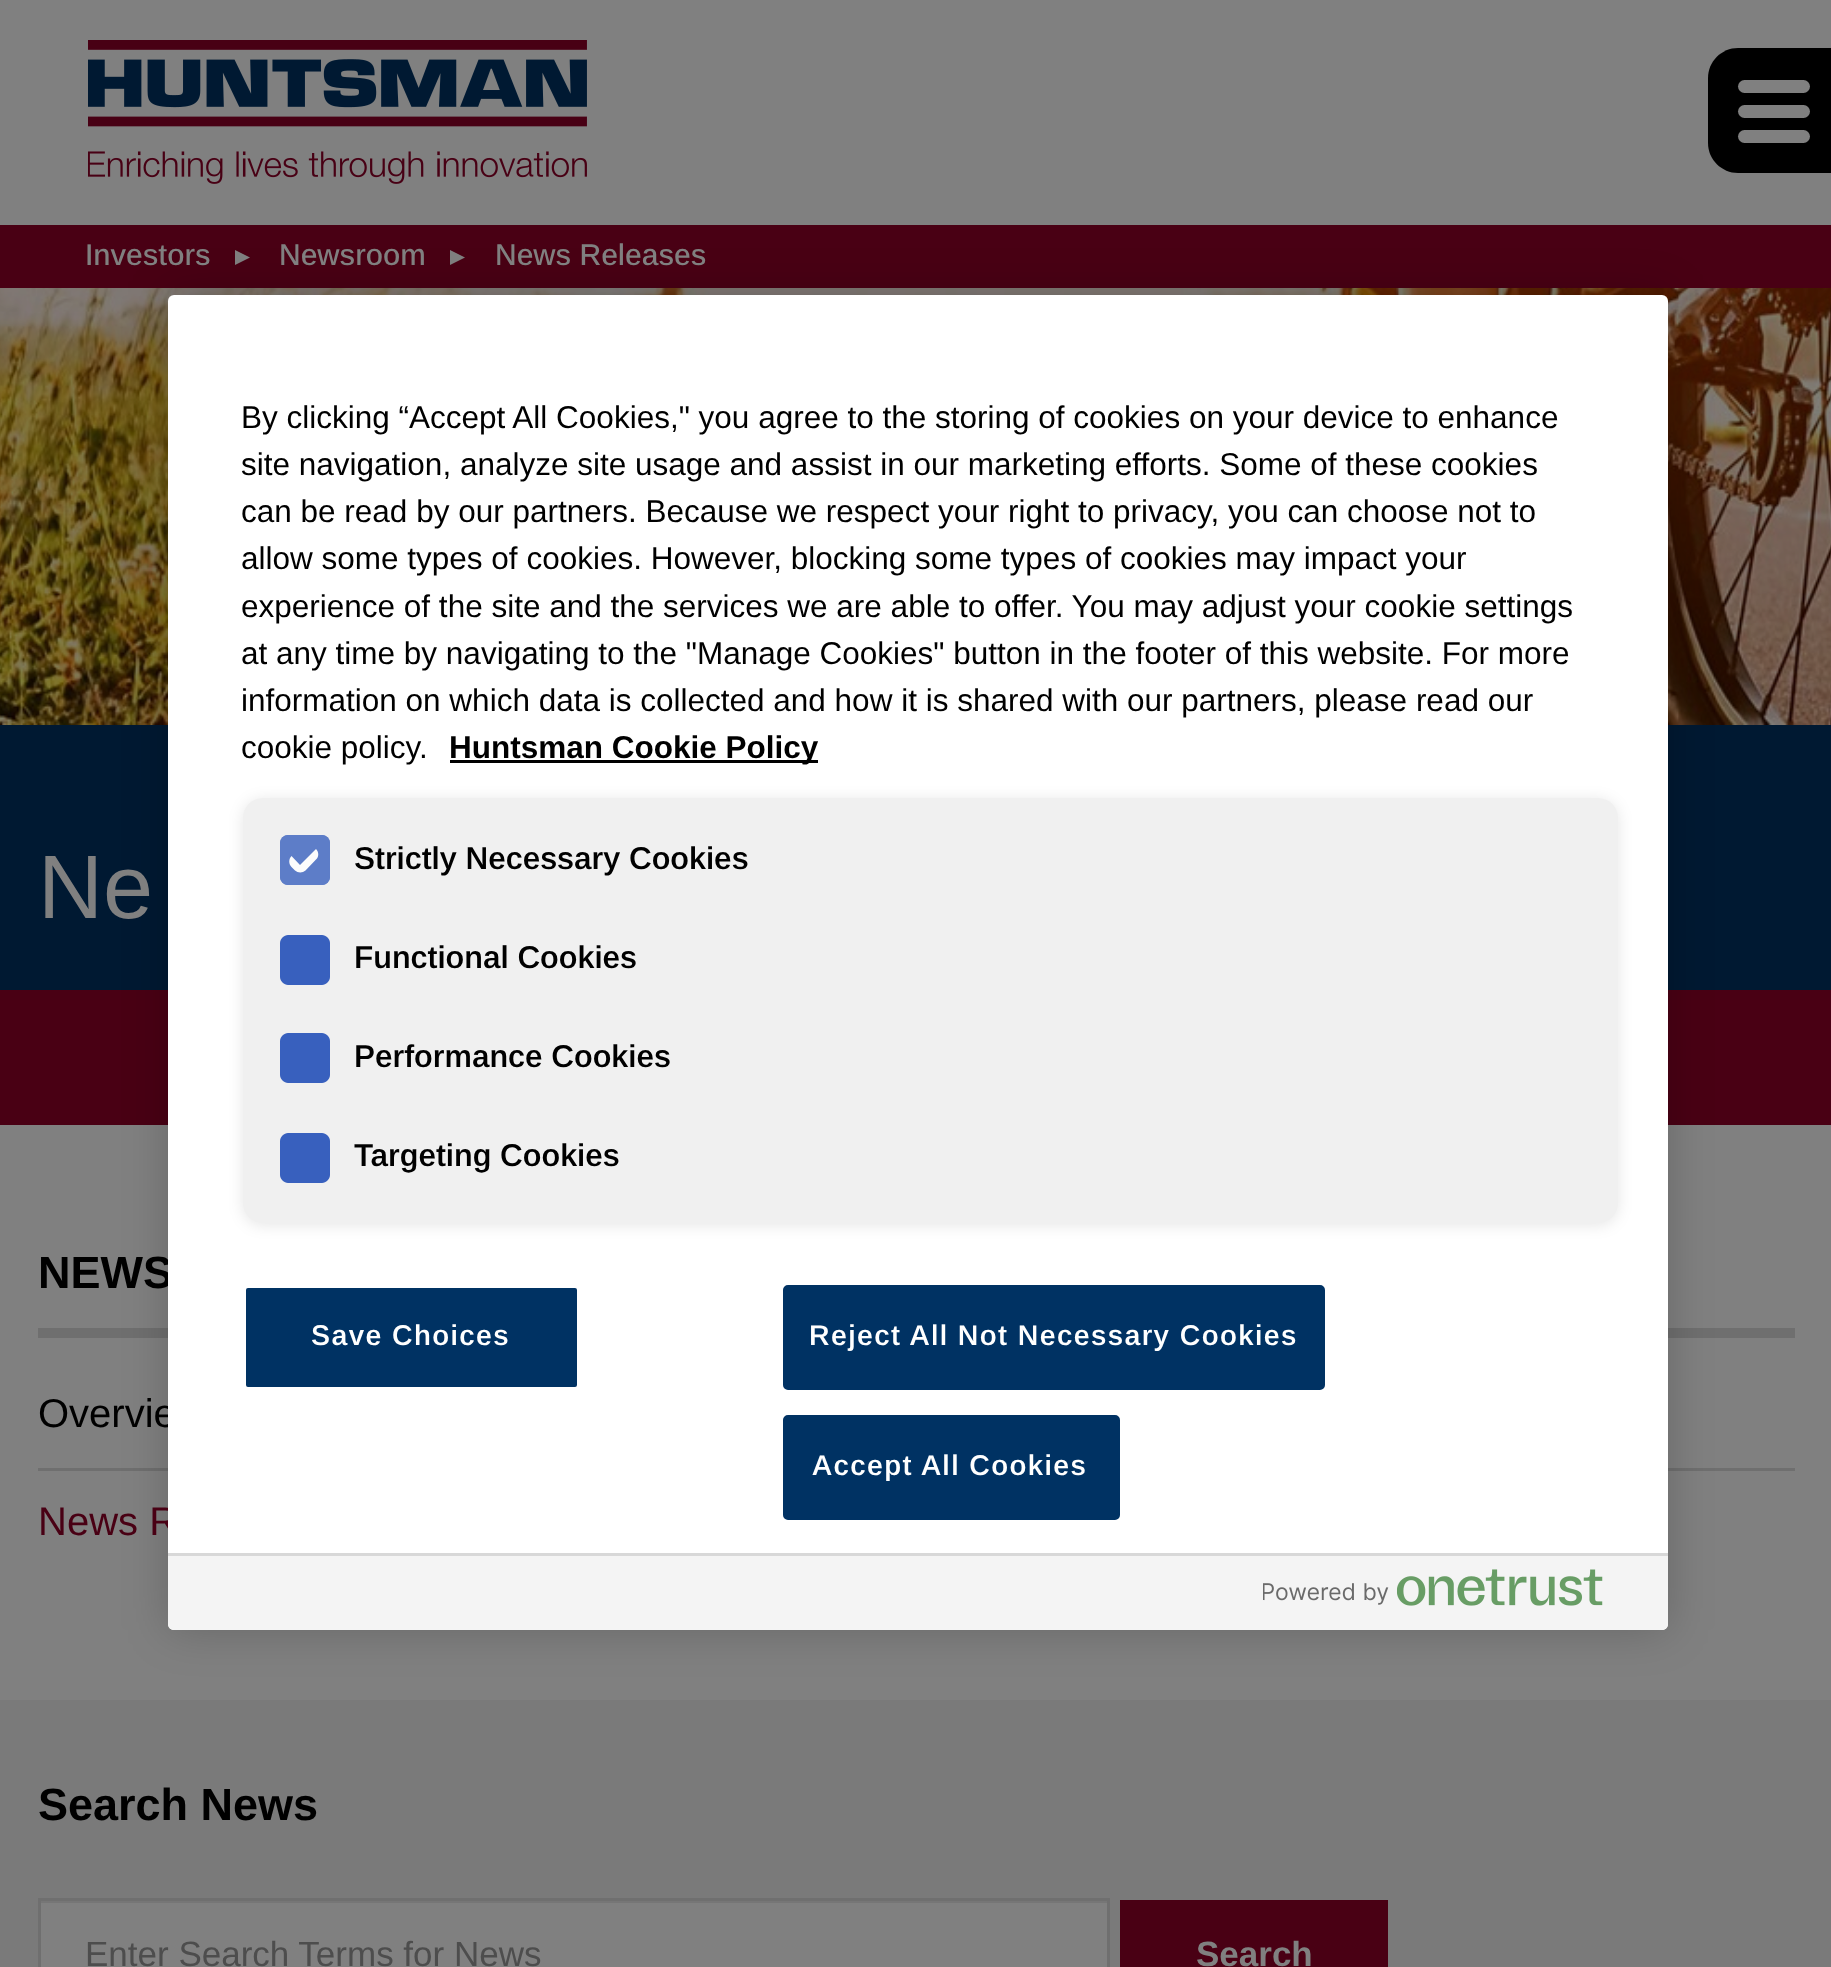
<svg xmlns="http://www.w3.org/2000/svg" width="1831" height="1967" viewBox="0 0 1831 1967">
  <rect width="100%" height="100%" fill="#808080"/>
  <image x="88" y="40" width="499" height="144" href="img/1.png"/>
  <path d="M1738 48H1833V173H1738C1721.5 173 1708 159.5 1708 143V78C1708 61.5 1721.5 48 1738 48Z" fill="#000"/>
  <rect x="1738" y="80" width="72" height="13" rx="6.5" fill="#808080"/>
  <rect x="1738" y="105" width="72" height="13" rx="6.5" fill="#808080"/>
  <rect x="1738" y="130" width="72" height="13" rx="6.5" fill="#808080"/>
  <path d="M0 225h1831v63H0z" fill="#490014"/>
  <path d="M235 265V250L250 257.5Z" fill="#808080"/>
  <path d="M450 265V250L465 257.5Z" fill="#808080"/>
  <image x="0" y="288" width="1831" height="437" href="img/2.png"/>
  <path d="M0 725h1831v265H0z" fill="#001932"/>
  <path d="M0 990h1831v135H0z" fill="#490014"/>
  <path d="M38 1328h1757v10H38z" fill="#6f6f6f"/>
  <path d="M38 1468h1757v3H38z" fill="#6f6f6f"/>
  <path d="M0 1700h1831v267H0z" fill="#7a7a7a"/>
  <path d="M41 1903h1066v64H41z" fill="#808080"/>
  <path d="M40 1901h1068v2H40z" fill="#767676"/>
  <path d="M39.5 1899.5h1069v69H39.5z" fill="none" stroke="#6f6f6f" stroke-width="3"/>
  <path d="M1120 1900h268v67H1120z" fill="#490014"/>
  <rect x="168" y="295" width="1500" height="1335" rx="6" fill="#00000033" filter="blur(22.5px)"/>
  <g font-family="Arimo" font-size="30" font-weight="500" fill="#808080">
    <text x="85" y="265">Investors</text>
    <text x="279" y="265">Newsroom</text>
    <text x="495" y="265">News Releases</text>
  </g>
  <text x="38" y="918" font-family="Arimo" font-size="90" fill="#808080">Ne</text>
  <text x="38" y="1288" font-family="Arimo" font-size="45" font-weight="bold" fill="#000">NEWS</text>
  <text x="38" y="1427" font-family="Arimo" font-size="40" fill="#000">Overvie</text>
  <text x="38" y="1535" font-family="Arimo" font-size="40" fill="#490014">News R</text>
  <text x="38" y="1820" font-family="Arimo" font-size="45" font-weight="bold" fill="#000">Search News</text>
  <text x="85" y="1966" font-family="Liberation Sans" font-size="35" fill="#4d4d4d">Enter Search Terms for News</text>
  <text x="1196" y="1966" font-family="Liberation Sans" font-size="35" font-weight="bold" fill="#808080">Search</text>
  <rect x="168" y="295" width="1500" height="1335" rx="6" fill="#fff"/>
  <g font-family="Arimo" font-size="31.5" fill="#000">
    <text x="241" y="428">By clicking “Accept All Cookies," you agree to the storing of cookies on your device to enhance</text>
    <text x="241" y="475">site navigation, analyze site usage and assist in our marketing efforts. Some of these cookies</text>
    <text x="241" y="522">can be read by our partners. Because we respect your right to privacy, you can choose not to</text>
    <text x="241" y="569">allow some types of cookies. However, blocking some types of cookies may impact your</text>
    <text x="241" y="617">experience of the site and the services we are able to offer. You may adjust your cookie settings</text>
    <text x="241" y="664">at any time by navigating to the "Manage Cookies" button in the footer of this website. For more</text>
    <text x="241" y="711">information on which data is collected and how it is shared with our partners, please read our</text>
    <text x="241" y="758">cookie policy.</text>
  </g>
  <path d="M450 760h368v3H450z" fill="#000"/>
  <text x="449" y="758" font-family="Arimo" font-size="31.5" font-weight="bold" fill="#000">Huntsman Cookie Policy</text>
  <rect x="243" y="800" width="1375" height="425" rx="20" fill="#0000001a" filter="blur(7.5px)"/>
  <rect x="243" y="798" width="1375" height="425" rx="20" fill="#f0f0f0"/>
  <rect x="280" y="835" width="50" height="50" rx="8" fill="#5d7dc8"/>
  <path d="M288 835H322C326 835 330 839 330 843V877C330 881 326 885 322 885H288C284 885 280 881 280 877V843C280 839 284 835 288 835Z" fill="#5d7dc8"/>
  <path d="M291.5 856L302 845.5C305 842.5 309.5 842.5 312.5 845.5L316 849C319 852 319 857 316 859.5L305.5 870.5C302.5 873 298 873 295 870.5L291.5 867C288.5 864 288.5 859 291.5 856ZM291.5 856L302 845.5C305 842.5 309.5 842.5 312.5 845.5L316 849L300 865Z" fill="#fcfcfc" fill-rule="evenodd"/>
  <text x="354" y="869" font-family="Arimo" font-size="31.5" font-weight="600" fill="#000">Strictly Necessary Cookies</text>
  <path d="M288 935H322C326 935 330 939 330 943V977C330 981 326 985 322 985H288C284 985 280 981 280 977V943C280 939 284 935 288 935Z" fill="#3860be"/>
  <text x="354" y="968" font-family="Arimo" font-size="31.5" font-weight="600" fill="#000">Functional Cookies</text>
  <path d="M288 1033H322C326 1033 330 1037 330 1041V1075C330 1079 326 1083 322 1083H288C284 1083 280 1079 280 1075V1041C280 1037 284 1033 288 1033Z" fill="#3860be"/>
  <text x="354" y="1067" font-family="Arimo" font-size="31.5" font-weight="600" fill="#000">Performance Cookies</text>
  <path d="M288 1133H322C326 1133 330 1137 330 1141V1175C330 1179 326 1183 322 1183H288C284 1183 280 1179 280 1175V1141C280 1137 284 1133 288 1133Z" fill="#3860be"/>
  <text x="354" y="1166" font-family="Arimo" font-size="31.5" font-weight="600" fill="#000">Targeting Cookies</text>
  <rect x="244.5" y="1286.5" width="334" height="102" rx="3.5" fill="#003263" stroke="#fff" stroke-width="3"/>
  <text x="311" y="1345" font-family="Arimo" font-size="28.5" font-weight="600" letter-spacing="1.4" fill="#fff">Save Choices</text>
  <rect x="784.5" y="1286.5" width="539" height="102" rx="3.5" fill="#003263" stroke="#003263" stroke-width="3"/>
  <text x="809" y="1345" font-family="Arimo" font-size="28.5" font-weight="600" letter-spacing="1.4" fill="#fff">Reject All Not Necessary Cookies</text>
  <rect x="784.5" y="1416.5" width="334" height="102" rx="3.5" fill="#003263" stroke="#003263" stroke-width="3"/>
  <text x="812" y="1475" font-family="Arimo" font-size="28.5" font-weight="600" letter-spacing="1.4" fill="#fff">Accept All Cookies</text>
  <path d="M168 1553H1668V1624C1668 1627.5 1665.5 1630 1662 1630H174C170.5 1630 168 1627.5 168 1624Z" fill="#f4f4f4"/>
  <path d="M168 1553h1500v3H168z" fill="#d8d8d8"/>
  <image x="1263" y="1569" width="340" height="37" href="img/3.png"/>
</svg>
